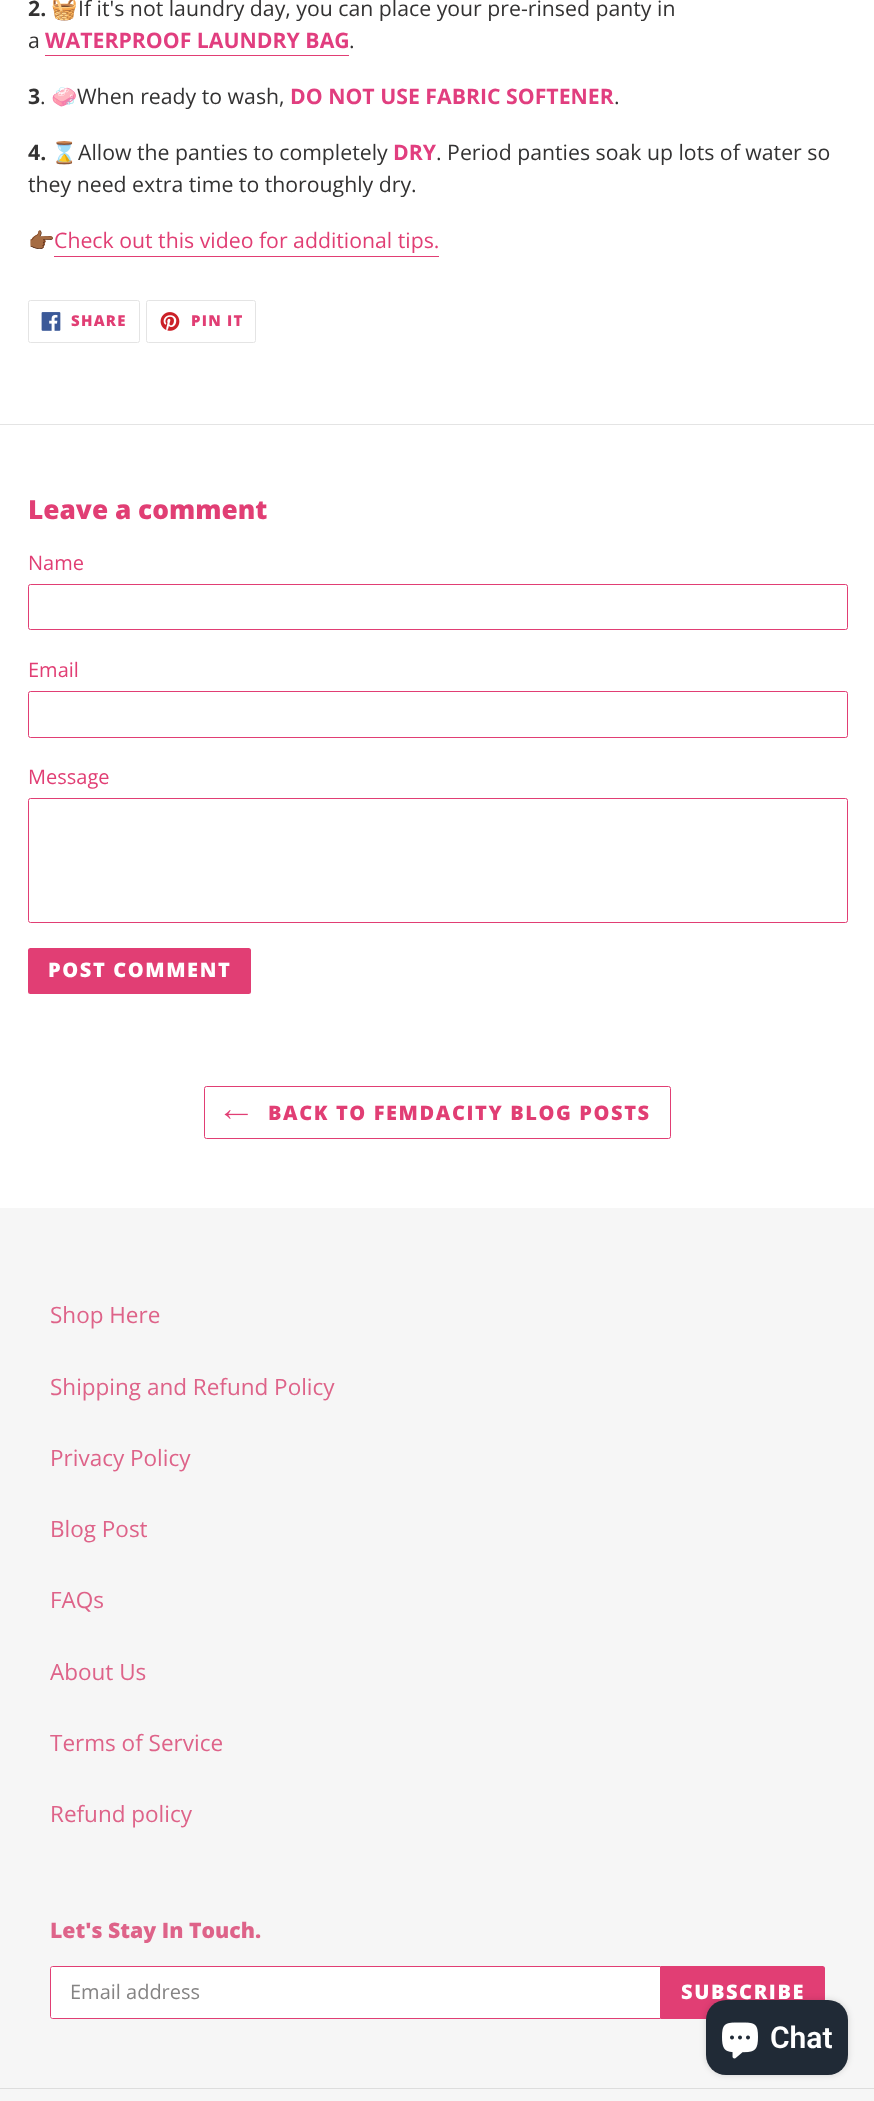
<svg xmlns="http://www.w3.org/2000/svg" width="874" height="2101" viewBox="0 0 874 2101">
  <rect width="100%" height="100%" fill="#fff"/>
  <path d="M45 55h304v1H45z" fill="#e13e74"/>
  <path d="M54 256h385v1H54z" fill="#e13e74"/>
  <rect x="28.5" y="300.5" width="111" height="42" rx="2" fill="none" stroke="#e4e4e4"/>
  <image x="41" y="312" width="20" height="19" href="img/1.png"/>
  <rect x="146.5" y="300.5" width="109" height="42" rx="2" fill="none" stroke="#e4e4e4"/>
  <image x="160" y="312" width="20" height="19" href="img/2.png"/>
  <path d="M0 424h874v1H0z" fill="#e4e4e4"/>
  <rect x="28.5" y="584.5" width="819" height="45" rx="2" fill="none" stroke="#e13e74"/>
  <rect x="28.5" y="691.5" width="819" height="46" rx="2" fill="none" stroke="#e13e74"/>
  <rect x="28.5" y="798.5" width="819" height="124" rx="2" fill="none" stroke="#e13e74"/>
  <rect x="28" y="948" width="223" height="46" rx="2.5" fill="#e13e74"/>
  <rect x="204.5" y="1086.5" width="466" height="52" rx="2" fill="none" stroke="#e13e74"/>
  <image x="224" y="1110" width="24" height="9" href="img/3.png"/>
  <path d="M0 1208h874v893H0z" fill="#f6f6f6"/>
  <path d="M52.5 1966.5H660.5V2018.5H52.5C51.5 2018.5 50.5 2017.5 50.5 2016.5V1968.5C50.5 1967.5 51.5 1966.5 52.5 1966.5Z" fill="#fff" stroke="#e13e74"/>
  <path d="M661 1966H822.5C824 1966 825 1967 825 1968.5V2016.5C825 2018 824 2019 822.5 2019H661Z" fill="#e13e74"/>
  <path d="M0 2088h874v1H0z" fill="#ddd"/>
  <rect x="706" y="2000" width="142" height="75" rx="20" fill="#00000026" filter="blur(3px)"/>
  <rect x="706" y="2000" width="142" height="75" rx="20" fill="#202a36"/>
  <image x="722" y="2022" width="36" height="37" href="img/4.png"/>
  <text x="28" y="16" font-family="Open Sans" font-size="21.25" font-weight="bold" fill="#333232">2.</text>
  <text x="51" y="16" font-family="Noto Color Emoji" font-size="21.25" fill="#333232">🧺</text>
  <g font-family="Open Sans" font-size="21.25" fill="#333232">
    <text x="78" y="16">If it's not laundry day, you can place your pre-rinsed panty in</text>
    <text x="28" y="48">a</text>
  </g>
  <text x="45" y="48" font-family="Open Sans" font-size="21.25" font-weight="bold" fill="#e13e7f">WATERPROOF LAUNDRY BAG</text>
  <text x="349" y="48" font-family="Open Sans" font-size="21.25" fill="#333232">.</text>
  <text x="28" y="104" font-family="Open Sans" font-size="21.25" font-weight="bold" fill="#333232">3</text>
  <text x="40" y="104" font-family="Open Sans" font-size="21.25" fill="#333232">.</text>
  <text x="51" y="104" font-family="Noto Color Emoji" font-size="21.25" fill="#333232">🧼</text>
  <text x="77" y="104" font-family="Open Sans" font-size="21.25" fill="#333232">When ready to wash,</text>
  <text x="290" y="104" font-family="Open Sans" font-size="21.25" font-weight="bold" fill="#e13e7f">DO NOT USE FABRIC SOFTENER</text>
  <text x="614" y="104" font-family="Open Sans" font-size="21.25" fill="#333232">.</text>
  <text x="28" y="160" font-family="Open Sans" font-size="21.25" font-weight="bold" fill="#333232">4.</text>
  <text x="51" y="160" font-family="Noto Color Emoji" font-size="21.25" fill="#333232">⌛</text>
  <text x="78" y="160" font-family="Open Sans" font-size="21.25" fill="#333232">Allow the panties to completely</text>
  <text x="393" y="160" font-family="Open Sans" font-size="21.25" font-weight="bold" fill="#e13e7f">DRY</text>
  <g font-family="Open Sans" font-size="21.25" fill="#333232">
    <text x="436" y="160">. Period panties soak up lots of water so</text>
    <text x="28" y="192">they need extra time to thoroughly dry.</text>
  </g>
  <text x="28" y="248" font-family="Noto Color Emoji" font-size="21.25" fill="#333232">👉🏾</text>
  <text x="54" y="248" font-family="Open Sans" font-size="21.25" fill="#e13e74">Check out this video for additional tips.</text>
  <g font-family="Open Sans" font-size="15" font-weight="800" letter-spacing="1.25" fill="#e13e74">
    <text x="71" y="326">SHARE</text>
    <text x="191" y="326">PIN IT</text>
  </g>
  <text x="28" y="519" font-family="Open Sans" font-size="26.25" font-weight="800" fill="#e13e74">Leave a comment</text>
  <g font-family="Open Sans" font-size="20" fill="#e13e74">
    <text x="28" y="570">Name</text>
    <text x="28" y="677">Email</text>
    <text x="28" y="784">Message</text>
  </g>
  <text x="48" y="977" font-family="Open Sans" font-size="20" font-weight="800" letter-spacing="1.6" fill="#fff">POST COMMENT</text>
  <text x="268" y="1120" font-family="Open Sans" font-size="20" font-weight="800" letter-spacing="1.6" fill="#e13e74">BACK TO FEMDACITY BLOG POSTS</text>
  <g font-family="Open Sans" font-size="22.5" fill="#de6389">
    <text x="50" y="1323">Shop Here</text>
    <text x="50" y="1395">Shipping and Refund Policy</text>
    <text x="50" y="1466">Privacy Policy</text>
    <text x="50" y="1537">Blog Post</text>
    <text x="50" y="1608">FAQs</text>
    <text x="50" y="1680">About Us</text>
    <text x="50" y="1751">Terms of Service</text>
    <text x="50" y="1822">Refund policy</text>
  </g>
  <text x="50" y="1938" font-family="Open Sans" font-size="21.25" font-weight="800" fill="#de6389">Let's Stay In Touch.</text>
  <text x="70" y="1999" font-family="Open Sans" font-size="20" fill="#858484">Email address</text>
  <text x="681" y="1999" font-family="Open Sans" font-size="20" font-weight="800" letter-spacing="1.6" fill="#fff">SUBSCRIBE</text>
  <text x="770" y="2048" font-family="Roboto" font-size="30" font-weight="600" fill="#fff">Chat</text>
</svg>
